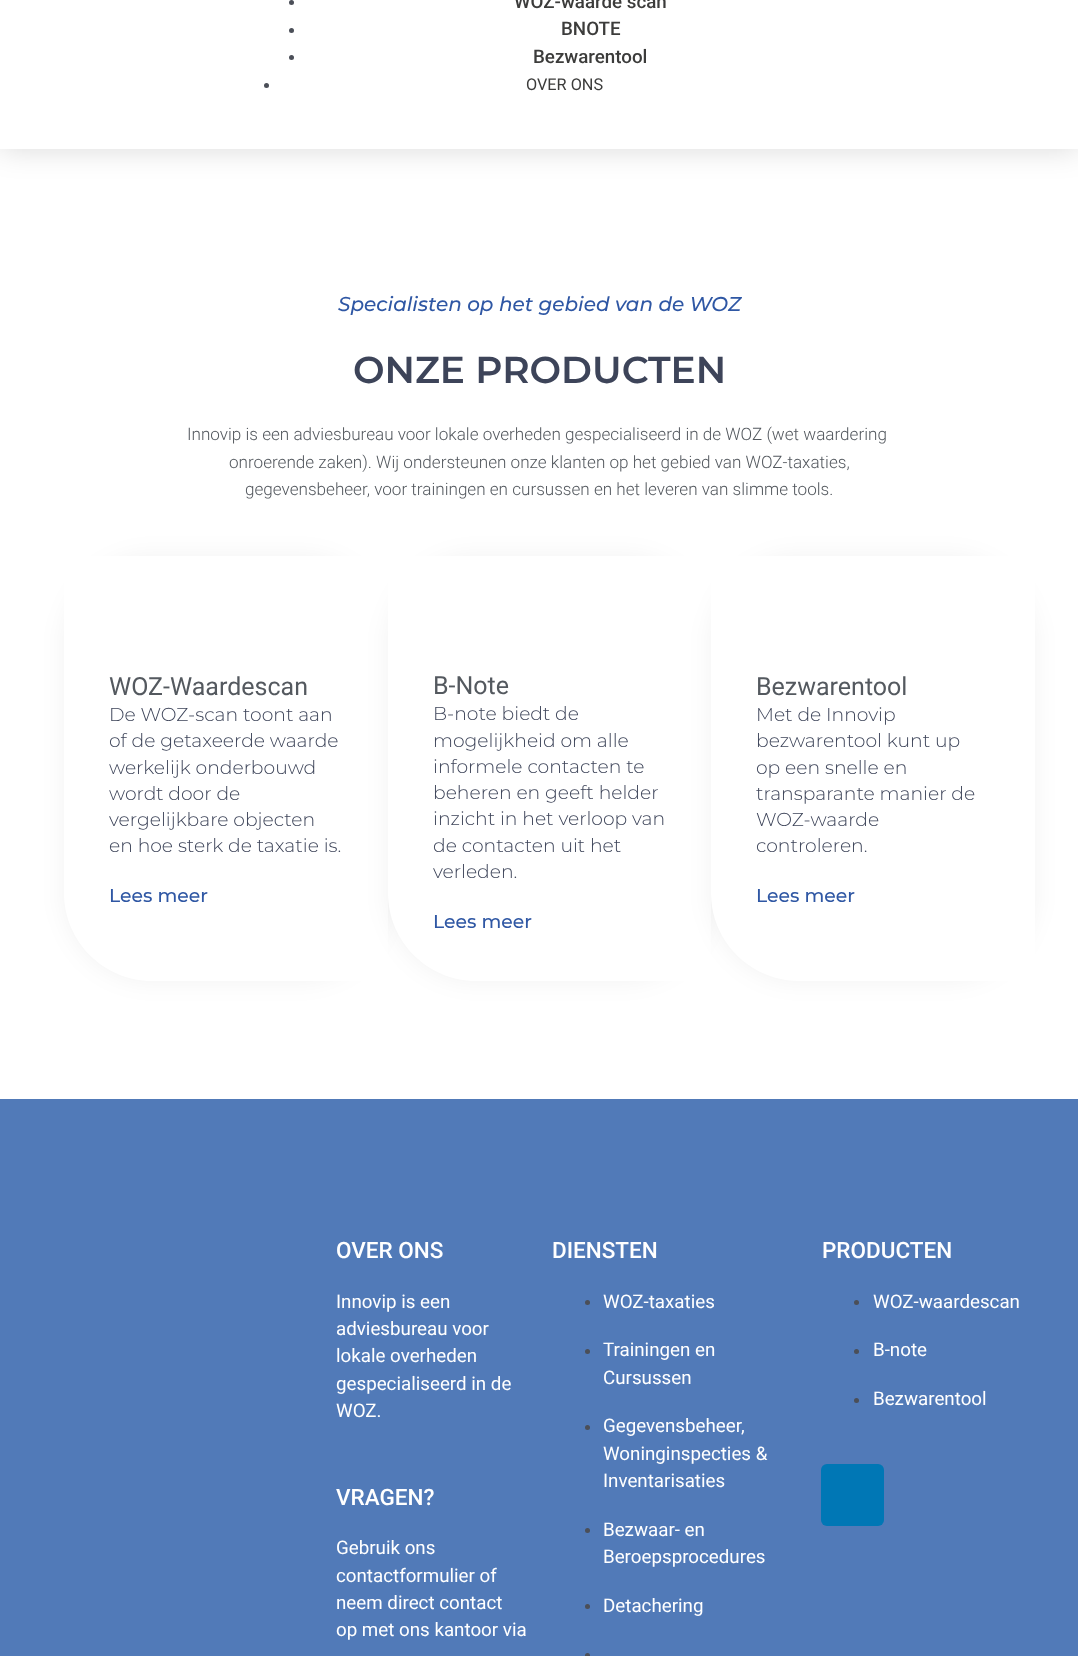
<svg xmlns="http://www.w3.org/2000/svg" width="1078" height="1656" viewBox="0 0 1078 1656">
  <rect width="100%" height="100%" fill="#fff"/>
  <path d="M0 -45h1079v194H0z" fill="#00000026" filter="blur(15px)"/>
  <path d="M0 0h1078v149H0z" fill="#fff"/>
  <circle cx="291.5" cy="2.5" r="2.5" fill="#4b4f58"/>
  <circle cx="291.5" cy="30.5" r="2.5" fill="#4b4f58"/>
  <circle cx="291.5" cy="57.5" r="2.5" fill="#4b4f58"/>
  <circle cx="266.5" cy="85.5" r="2.5" fill="#4b4f58"/>
  <rect x="64" y="556" width="324" height="425" rx="88" fill="#0000000d" filter="blur(12.5px)"/>
  <path d="M83 556H369C379.5 556 388 564.5 388 575V962C388 972.5 379.5 981 369 981H152C103.5 981 64 941.5 64 893V575C64 564.5 72.5 556 83 556Z" fill="#fff"/>
  <rect x="388" y="556" width="323" height="425" rx="88" fill="#0000000d" filter="blur(12.5px)"/>
  <path d="M407 556H692C702.5 556 711 564.5 711 575V962C711 972.5 702.5 981 692 981H476C427.5 981 388 941.5 388 893V575C388 564.5 396.5 556 407 556Z" fill="#fff"/>
  <rect x="711" y="556" width="324" height="425" rx="88" fill="#0000000d" filter="blur(12.5px)"/>
  <path d="M730 556H1016C1026.5 556 1035 564.5 1035 575V962C1035 972.5 1026.5 981 1016 981H799C750.5 981 711 941.5 711 893V575C711 564.5 719.5 556 730 556Z" fill="#fff"/>
  <path d="M0 1099h1078v557H0z" fill="#517ab8"/>
  <circle cx="587.5" cy="1302.5" r="2.5" fill="#4b4f58"/>
  <circle cx="587.5" cy="1351.5" r="2.5" fill="#4b4f58"/>
  <circle cx="587.5" cy="1427.5" r="2.5" fill="#4b4f58"/>
  <circle cx="587.5" cy="1530.5" r="2.5" fill="#4b4f58"/>
  <circle cx="587.5" cy="1606.5" r="2.5" fill="#4b4f58"/>
  <circle cx="587.5" cy="1655.5" r="2.5" fill="#4b4f58"/>
  <circle cx="856.5" cy="1302.5" r="2.5" fill="#4b4f58"/>
  <circle cx="856.5" cy="1351.5" r="2.5" fill="#4b4f58"/>
  <circle cx="856.5" cy="1400.5" r="2.5" fill="#4b4f58"/>
  <rect x="821" y="1464" width="63" height="62" rx="6" fill="#0077b5"/>
  <g font-family="Roboto" font-size="18.75" font-weight="500" fill="#3c3c3b">
    <text x="514" y="8">WOZ-waarde scan</text>
    <text x="561" y="35">BNOTE</text>
    <text x="533" y="63">Bezwarentool</text>
  </g>
  <text x="526" y="90" font-family="Roboto" font-size="16.25" fill="#3c3c3b">OVER ONS</text>
  <text x="338" y="311" font-family="Montserrat" font-size="20" font-weight="500" font-style="italic" fill="#2f57a4">Specialisten op het gebied van de WOZ</text>
  <text x="353" y="383" font-family="Montserrat" font-size="37.5" font-weight="600" fill="#3d4459">ONZE PRODUCTEN</text>
  <g font-family="Roboto" font-size="17.1" font-weight="300" fill="#54595f">
    <text x="187" y="440">Innovip is een adviesbureau voor lokale overheden gespecialiseerd in de WOZ (wet waardering</text>
    <text x="229" y="468">onroerende zaken). Wij ondersteunen onze klanten op het gebied van WOZ-taxaties,</text>
    <text x="245" y="495">gegevensbeheer, voor trainingen en cursussen en het leveren van slimme tools.</text>
  </g>
  <text x="109" y="695" font-family="Roboto" font-size="25" fill="#54595f">WOZ-Waardescan</text>
  <g font-family="Montserrat" font-size="18.75" font-weight="300" fill="#3d4459">
    <text x="109" y="721">De WOZ-scan toont aan</text>
    <text x="109" y="747">of de getaxeerde waarde</text>
    <text x="109" y="774">werkelijk onderbouwd</text>
    <text x="109" y="800">wordt door de</text>
    <text x="109" y="826">vergelijkbare objecten</text>
    <text x="109" y="852">en hoe sterk de taxatie is.</text>
  </g>
  <text x="109" y="902" font-family="Montserrat" font-size="18.75" font-weight="500" fill="#2f57a4">Lees meer</text>
  <text x="433" y="694" font-family="Roboto" font-size="25" fill="#54595f">B-Note</text>
  <g font-family="Montserrat" font-size="18.75" font-weight="300" fill="#3d4459">
    <text x="433" y="720">B-note biedt de</text>
    <text x="433" y="747">mogelijkheid om alle</text>
    <text x="433" y="773">informele contacten te</text>
    <text x="433" y="799">beheren en geeft helder</text>
    <text x="433" y="825">inzicht in het verloop van</text>
    <text x="433" y="852">de contacten uit het</text>
    <text x="433" y="878">verleden.</text>
  </g>
  <text x="433" y="928" font-family="Montserrat" font-size="18.75" font-weight="500" fill="#2f57a4">Lees meer</text>
  <text x="756" y="695" font-family="Roboto" font-size="25" fill="#54595f">Bezwarentool</text>
  <g font-family="Montserrat" font-size="18.75" font-weight="300" fill="#3d4459">
    <text x="756" y="721">Met de Innovip</text>
    <text x="756" y="747">bezwarentool kunt up</text>
    <text x="756" y="774">op een snelle en</text>
    <text x="756" y="800">transparante manier de</text>
    <text x="756" y="826">WOZ-waarde</text>
    <text x="756" y="852">controleren.</text>
  </g>
  <text x="756" y="902" font-family="Montserrat" font-size="18.75" font-weight="500" fill="#2f57a4">Lees meer</text>
  <text x="336" y="1258" font-family="Roboto" font-size="22.5" font-weight="500" fill="#fff">OVER ONS</text>
  <g font-family="Roboto" font-size="18.75" fill="#fff">
    <text x="336" y="1308">Innovip is een</text>
    <text x="336" y="1335">adviesbureau voor</text>
    <text x="336" y="1362">lokale overheden</text>
    <text x="336" y="1390">gespecialiseerd in de</text>
    <text x="336" y="1417">WOZ.</text>
  </g>
  <text x="336" y="1505" font-family="Roboto" font-size="22.5" font-weight="500" fill="#fff">VRAGEN?</text>
  <g font-family="Roboto" font-size="18.75" fill="#fff">
    <text x="336" y="1554">Gebruik ons</text>
    <text x="336" y="1582">contactformulier of</text>
    <text x="336" y="1609">neem direct contact</text>
    <text x="336" y="1636">op met ons kantoor via</text>
  </g>
  <text x="552" y="1258" font-family="Roboto" font-size="22.5" font-weight="500" fill="#fff">DIENSTEN</text>
  <g font-family="Roboto" font-size="18.75" fill="#fff">
    <text x="603" y="1308">WOZ-taxaties</text>
    <text x="603" y="1356">Trainingen en</text>
    <text x="603" y="1384">Cursussen</text>
    <text x="603" y="1432">Gegevensbeheer,</text>
    <text x="603" y="1460">Woninginspecties &amp;</text>
    <text x="603" y="1487">Inventarisaties</text>
    <text x="603" y="1536">Bezwaar- en</text>
    <text x="603" y="1563">Beroepsprocedures</text>
    <text x="603" y="1612">Detachering</text>
  </g>
  <text x="822" y="1258" font-family="Roboto" font-size="22.5" font-weight="500" fill="#fff">PRODUCTEN</text>
  <g font-family="Roboto" font-size="18.75" fill="#fff">
    <text x="873" y="1308">WOZ-waardescan</text>
    <text x="873" y="1356">B-note</text>
    <text x="873" y="1405">Bezwarentool</text>
  </g>
</svg>
